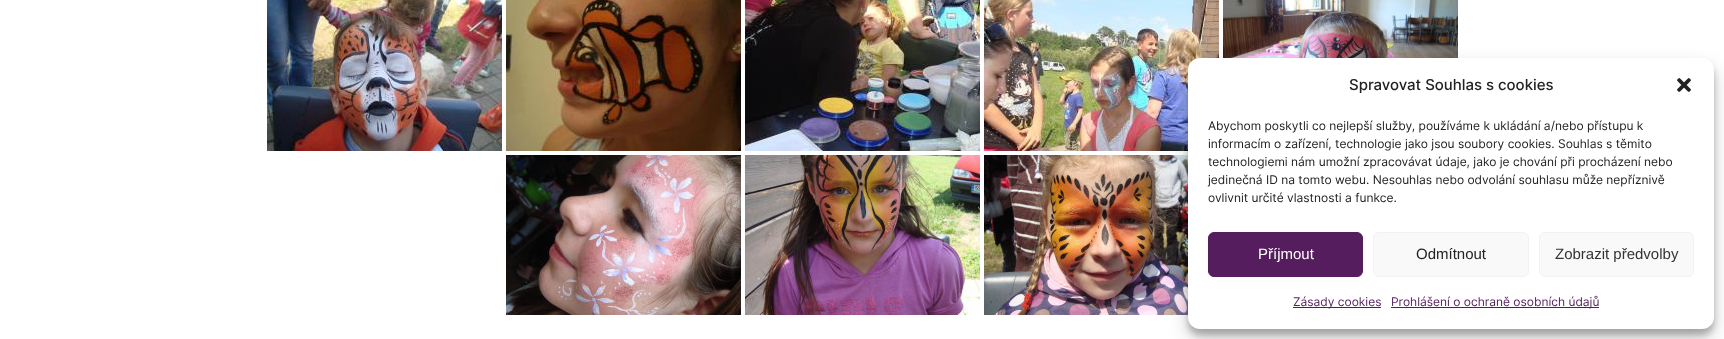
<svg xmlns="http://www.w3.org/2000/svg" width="1724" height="339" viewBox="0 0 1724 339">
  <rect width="100%" height="100%" fill="#fff"/>
  <image x="267" y="0" width="235" height="151" href="img/1.png"/>
  <image x="506" y="0" width="235" height="151" href="img/2.png"/>
  <image x="745" y="0" width="235" height="151" href="img/3.png"/>
  <image x="984" y="0" width="235" height="151" href="img/4.png"/>
  <image x="1223" y="0" width="235" height="58" href="img/5.png"/>
  <image x="506" y="155" width="235" height="160" href="img/6.png"/>
  <image x="745" y="155" width="235" height="160" href="img/7.png"/>
  <image x="984" y="155" width="204" height="160" href="img/8.png"/>
  <rect x="1188" y="64" width="526" height="271" rx="12" fill="#0000003b" filter="blur(3px)"/>
  <rect x="1188" y="68" width="526" height="271" rx="12" fill="#00000030" filter="blur(10px)"/>
  <rect x="1188" y="58" width="526" height="271" rx="12" fill="#fff"/>
  <image x="1677" y="78" width="14" height="14" href="img/9.png"/>
  <rect x="1208.5" y="232.5" width="154" height="44" rx="5.5" fill="#551c5e" stroke="#551c5e"/>
  <rect x="1373.5" y="232.5" width="155" height="44" rx="5.5" fill="#f9f9f9" stroke="#f2f2f2"/>
  <rect x="1539.5" y="232.5" width="154" height="44" rx="5.5" fill="#f9f9f9" stroke="#f2f2f2"/>
  <path d="M1293 307h88v1H1293z" fill="#551c5e"/>
  <path d="M1391 307h208v1H1391z" fill="#551c5e"/>
  <text x="1349" y="90" font-family="Inter" font-size="15" font-weight="500" fill="#222">Spravovat Souhlas s cookies</text>
  <g font-family="Inter" font-size="12" fill="#222">
    <text x="1208" y="130">Abychom poskytli co nejlepší služby, používáme k ukládání a/nebo přístupu k</text>
    <text x="1208" y="148">informacím o zařízení, technologie jako jsou soubory cookies. Souhlas s těmito</text>
    <text x="1208" y="166">technologiemi nám umožní zpracovávat údaje, jako je chování při procházení nebo</text>
    <text x="1208" y="184">jedinečná ID na tomto webu. Nesouhlas nebo odvolání souhlasu může nepříznivě</text>
    <text x="1208" y="202">ovlivnit určité vlastnosti a funkce.</text>
  </g>
  <text x="1258" y="259" font-family="Liberation Sans" font-size="15" fill="#fff">Příjmout</text>
  <text x="1416" y="259" font-family="Liberation Sans" font-size="15" fill="#222">Odmítnout</text>
  <text x="1555" y="259" font-family="Liberation Sans" font-size="15" fill="#333">Zobrazit předvolby</text>
  <g font-family="Inter" font-size="12" fill="#551c5e">
    <text x="1293" y="306">Zásady cookies</text>
    <text x="1391" y="306">Prohlášení o ochraně osobních údajů</text>
  </g>
</svg>
